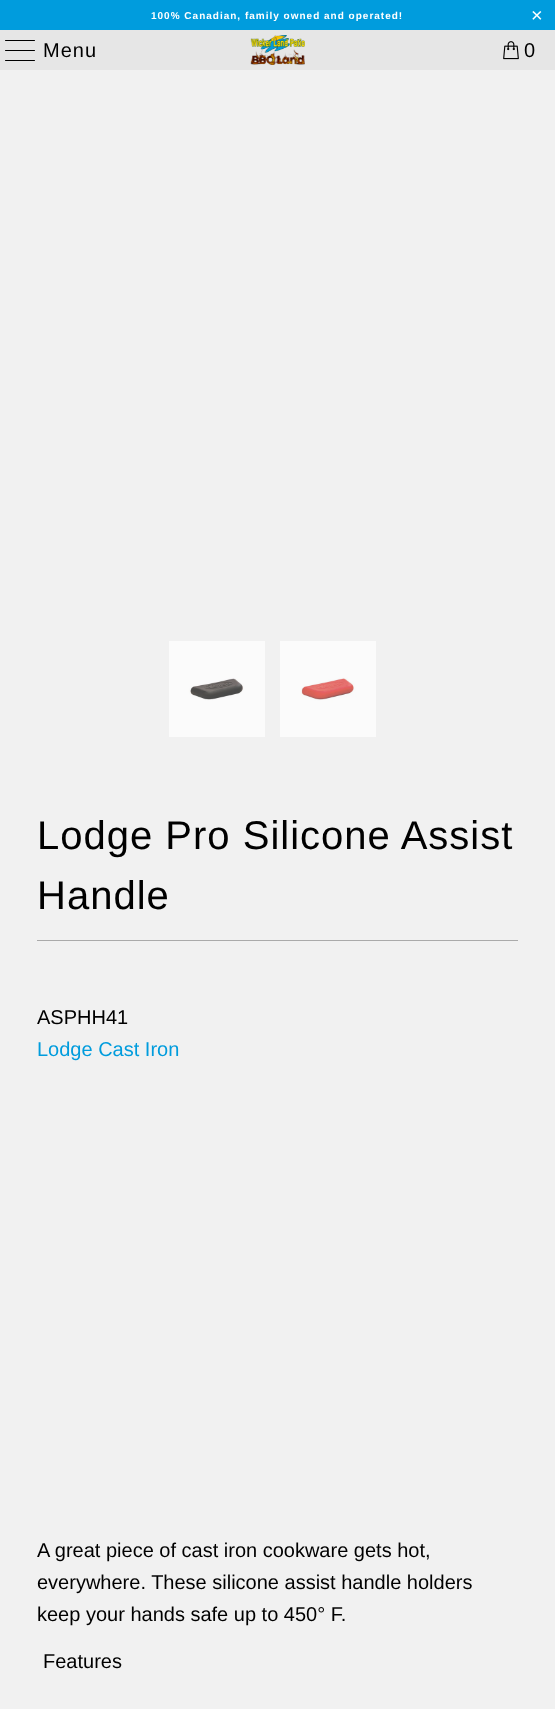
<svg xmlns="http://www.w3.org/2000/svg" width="555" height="1709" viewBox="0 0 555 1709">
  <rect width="100%" height="100%" fill="#f1f1f1"/>
  <path d="M0 0h555v30H0z" fill="#009cdd"/>
  <path d="M0 30h555v40H0z" fill="#e6e6e6"/>
  <rect x="5" y="40" width="30" height="1" rx="0.5" fill="#000"/>
  <rect x="5" y="50" width="30" height="1" rx="0.5" fill="#000"/>
  <rect x="5" y="60" width="30" height="1" rx="0.5" fill="#000"/>
  <image x="250" y="35" width="55" height="30" href="img/1.png"/>
  <image x="503" y="41" width="16" height="19" href="img/2.png"/>
  <image x="169" y="641" width="96" height="96" href="img/3.png"/>
  <image x="280" y="641" width="96" height="96" href="img/4.png"/>
  <path d="M37 940h481v1H37z" fill="#aaa"/>
  <text x="151" y="19" font-family="Liberation Sans" font-size="10" font-weight="bold" letter-spacing="1" fill="#fff">100% Canadian, family owned and operated!</text>
  <text x="531" y="22" font-family="Liberation Sans" font-size="20" letter-spacing="1" fill="#fff">×</text>
  <g font-family="Liberation Sans" font-size="20" letter-spacing="1" fill="#000">
    <text x="43" y="57">Menu</text>
    <text x="524" y="57">0</text>
  </g>
  <g font-family="Liberation Sans" font-size="40" letter-spacing="1" fill="#000">
    <text x="37" y="849">Lodge Pro Silicone Assist</text>
    <text x="37" y="909">Handle</text>
  </g>
  <text x="37" y="1024" font-family="Liberation Sans" font-size="20" fill="#000">ASPHH41</text>
  <text x="37" y="1056" font-family="Liberation Sans" font-size="20" fill="#009cdd">Lodge Cast Iron</text>
  <g font-family="Liberation Sans" font-size="20" fill="#000">
    <text x="37" y="1557">A great piece of cast iron cookware gets hot,</text>
    <text x="37" y="1589">everywhere. These silicone assist handle holders</text>
    <text x="37" y="1621">keep your hands safe up to 450° F.</text>
    <text x="43" y="1668">Features</text>
  </g>
</svg>
